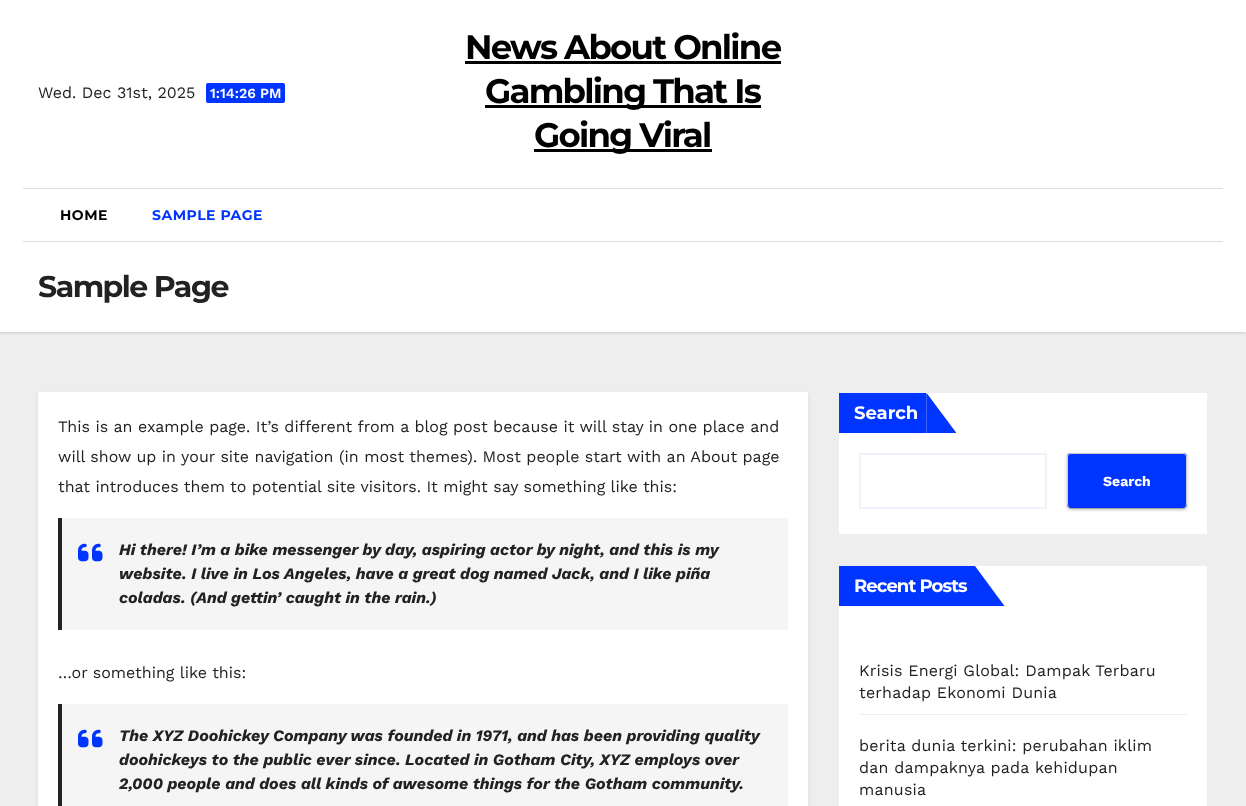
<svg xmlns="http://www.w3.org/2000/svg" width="1246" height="806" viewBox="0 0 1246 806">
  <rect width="100%" height="100%" fill="#eee"/>
  <path d="M0 0h1246v188H0z" fill="#fff"/>
  <rect x="206" y="83" width="79" height="20" rx="2" fill="#0035ff"/>
  <path d="M465 61h316v3H465z" fill="#000"/>
  <path d="M485 105h276v3H485z" fill="#000"/>
  <path d="M534 149h178v3H534z" fill="#000"/>
  <path d="M0 243h1246v90H0z" fill="#00000026" filter="blur(1.5px)"/>
  <path d="M0 188h1246v144H0z" fill="#fff"/>
  <path d="M23 188h1200v1H23z" fill="#ddd"/>
  <path d="M23 241h1200v1H23z" fill="#ddd"/>
  <path d="M38 394h770v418H38z" fill="#00000014" filter="blur(2px)"/>
  <path d="M38 392h770v414H38z" fill="#fff"/>
  <path d="M62 518h726v112H62z" fill="#f5f5f5"/>
  <path d="M58 518h4v112H58z" fill="#222"/>
  <image x="78" y="543" width="25" height="19" href="img/1.png"/>
  <path d="M62 704h726v102H62z" fill="#f5f5f5"/>
  <path d="M58 704h4v102H58z" fill="#222"/>
  <image x="78" y="729" width="25" height="19" href="img/1.png"/>
  <path d="M839 393h368v141H839z" fill="#fff"/>
  <path d="M839 393h87v40H839z" fill="#0035ff"/>
  <path d="M926.5 393V433H956V432.5Z" fill="#0035ff"/>
  <path d="M926.5 393.5V433H956Z" fill="#0035ff"/>
  <path d="M860 454h186v54H860z" fill="none" stroke="#eef3fb" stroke-width="2"/>
  <rect x="1067" y="454" width="120" height="55" rx="4" fill="#0000001f" filter="blur(2.5px)"/>
  <rect x="1069" y="458" width="116" height="51" rx="2" fill="#00000033" filter="blur(0.5px)"/>
  <rect x="1067" y="455" width="120" height="55" rx="4" fill="#00000024" filter="blur(1px)"/>
  <rect x="1067" y="453" width="120" height="55" rx="4" fill="#0035ff"/>
  <path d="M1071 453H1183C1185 453 1187 455 1187 457V504C1187 506 1185 508 1183 508H1071C1069 508 1067 506 1067 504V457C1067 455 1069 453 1071 453ZM1071 454H1183C1185 454 1186 455 1186 457V504C1186 506 1185 508 1183 508H1071C1069 508 1068 506 1068 504V457C1068 455 1069 454 1071 454Z" fill="#ccc" fill-rule="evenodd"/>
  <path d="M839 566h368v240H839z" fill="#fff"/>
  <path d="M839 566h136v40H839z" fill="#0035ff"/>
  <path d="M975 566V606H1004.5Z" fill="#0035ff"/>
  <path d="M859 714h328v1H859z" fill="#eee"/>
  <text x="38" y="98" font-family="Work Sans" font-size="16" fill="#222">Wed. Dec 31st, 2025</text>
  <text x="210" y="98" font-family="Work Sans" font-size="14" font-weight="600" fill="#fff">1:14:26 PM</text>
  <g font-family="Montserrat" font-size="34" font-weight="bold" letter-spacing="-1.75" fill="#000">
    <text x="465" y="59">News About Online</text>
    <text x="485" y="103">Gambling That Is</text>
    <text x="534" y="147">Going Viral</text>
  </g>
  <text x="60" y="220" font-family="Montserrat" font-size="14" font-weight="bold" letter-spacing="0.5" fill="#000">HOME</text>
  <text x="152" y="220" font-family="Montserrat" font-size="14" font-weight="bold" letter-spacing="0.5" fill="#0035ff">SAMPLE PAGE</text>
  <text x="38" y="297" font-family="Montserrat" font-size="30" font-weight="bold" letter-spacing="-1.5" fill="#222">Sample Page</text>
  <g font-family="Work Sans" font-size="16" fill="#222">
    <text x="58" y="432">This is an example page. It’s different from a blog post because it will stay in one place and</text>
    <text x="58" y="462">will show up in your site navigation (in most themes). Most people start with an About page</text>
    <text x="58" y="492">that introduces them to potential site visitors. It might say something like this:</text>
  </g>
  <g font-family="Work Sans" font-size="16" font-weight="bold" font-style="italic" fill="#222">
    <text x="119" y="555">Hi there! I’m a bike messenger by day, aspiring actor by night, and this is my</text>
    <text x="119" y="579">website. I live in Los Angeles, have a great dog named Jack, and I like piña</text>
    <text x="119" y="603">coladas. (And gettin’ caught in the rain.)</text>
  </g>
  <text x="58" y="678" font-family="Work Sans" font-size="16" fill="#222">…or something like this:</text>
  <g font-family="Work Sans" font-size="16" font-weight="bold" font-style="italic" fill="#222">
    <text x="119" y="741">The XYZ Doohickey Company was founded in 1971, and has been providing quality</text>
    <text x="119" y="765">doohickeys to the public ever since. Located in Gotham City, XYZ employs over</text>
    <text x="119" y="789">2,000 people and does all kinds of awesome things for the Gotham community.</text>
  </g>
  <text x="854" y="419" font-family="Montserrat" font-size="18" font-weight="bold" fill="#fff">Search</text>
  <text x="1103" y="486" font-family="Work Sans" font-size="14" font-weight="bold" fill="#fff">Search</text>
  <text x="854" y="592" font-family="Montserrat" font-size="18" font-weight="bold" letter-spacing="-0.9" fill="#fff">Recent Posts</text>
  <g font-family="Work Sans" font-size="16" letter-spacing="0.2" fill="#222">
    <text x="859" y="676">Krisis Energi Global: Dampak Terbaru</text>
    <text x="859" y="698">terhadap Ekonomi Dunia</text>
    <text x="859" y="751">berita dunia terkini: perubahan iklim</text>
    <text x="859" y="773">dan dampaknya pada kehidupan</text>
    <text x="859" y="795">manusia</text>
  </g>
</svg>
